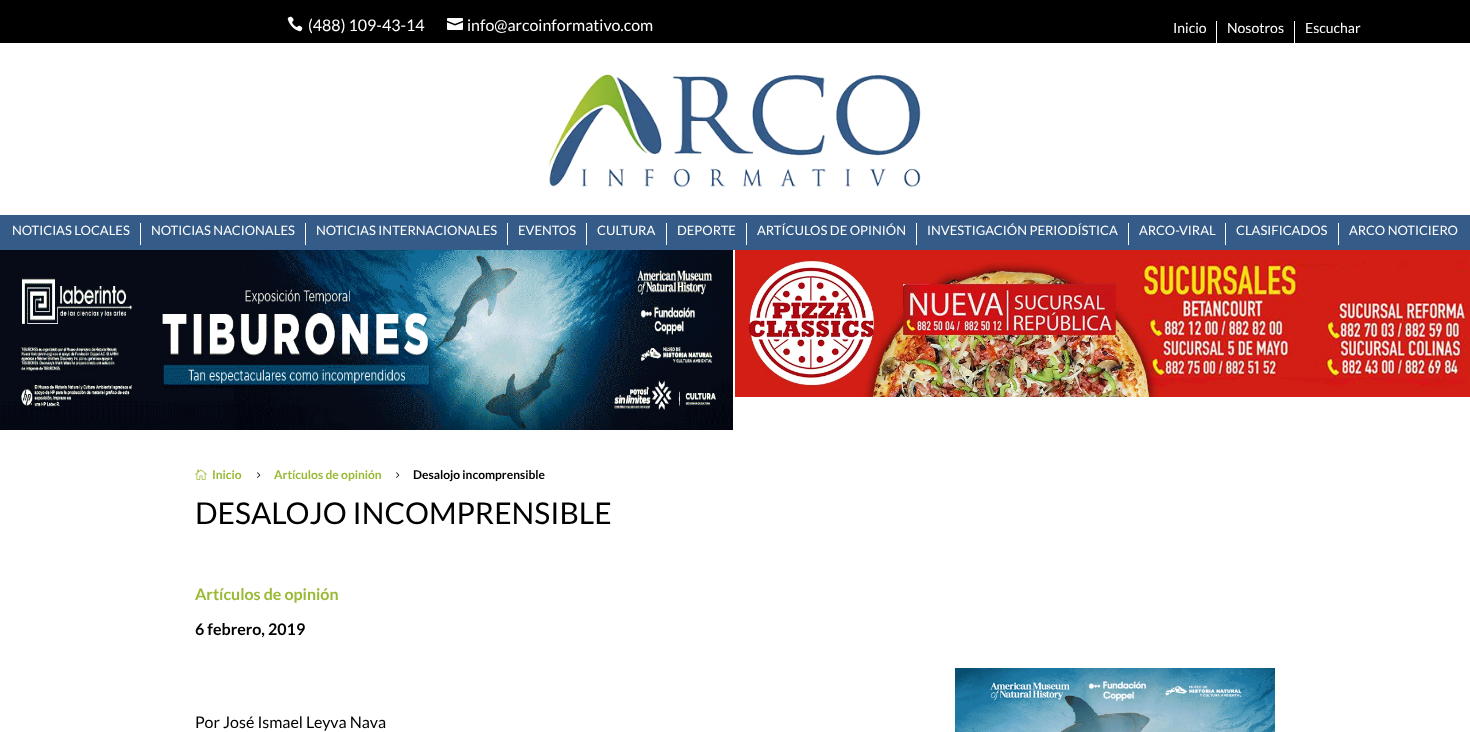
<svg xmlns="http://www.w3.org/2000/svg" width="1470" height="732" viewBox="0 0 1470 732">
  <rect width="100%" height="100%" fill="#fff"/>
  <path d="M0 0h1470v43H0z" fill="#000"/>
  <image x="287" y="16" width="16" height="16" href="img/1.png"/>
  <image x="447" y="18" width="16" height="12" href="img/2.png"/>
  <path d="M1216 21h1v22H1216z" fill="#fff"/>
  <path d="M1294 21h1v22H1294z" fill="#fff"/>
  <image x="548" y="74" width="373" height="114" href="img/3.png"/>
  <path d="M0 215h1470v35H0z" fill="#355b88"/>
  <path d="M140 223h1v22H140z" fill="#fff"/>
  <path d="M305 223h1v22H305z" fill="#fff"/>
  <path d="M507 223h1v22H507z" fill="#fff"/>
  <path d="M586 223h1v22H586z" fill="#fff"/>
  <path d="M666 223h1v22H666z" fill="#fff"/>
  <path d="M746 223h1v22H746z" fill="#fff"/>
  <path d="M916 223h1v22H916z" fill="#fff"/>
  <path d="M1128 223h1v22H1128z" fill="#fff"/>
  <path d="M1225 223h1v22H1225z" fill="#fff"/>
  <path d="M1338 223h1v22H1338z" fill="#fff"/>
  <image x="0" y="250" width="733" height="180" href="img/4.png"/>
  <image x="735" y="250" width="735" height="147" href="img/5.png"/>
  <image x="195" y="469" width="12" height="11" href="img/6.png"/>
  <image x="257" y="472" width="4" height="6" href="img/7.png"/>
  <image x="396" y="472" width="4" height="6" href="img/7.png"/>
  <image x="955" y="668" width="320" height="64" href="img/8.png"/>
  <g font-family="Lato" font-size="16" fill="#fff">
    <text x="308" y="31">(488) 109-43-14</text>
    <text x="467" y="31">info@arcoinformativo.com</text>
  </g>
  <g font-family="Lato" font-size="14" fill="#fff">
    <text x="1173" y="33">Inicio</text>
    <text x="1227" y="33">Nosotros</text>
    <text x="1305" y="33">Escuchar</text>
  </g>
  <g font-family="Lato" font-size="13" fill="#fff">
    <text x="12" y="235">NOTICIAS LOCALES</text>
    <text x="151" y="235">NOTICIAS NACIONALES</text>
    <text x="316" y="235">NOTICIAS INTERNACIONALES</text>
    <text x="518" y="235">EVENTOS</text>
    <text x="597" y="235">CULTURA</text>
    <text x="677" y="235">DEPORTE</text>
    <text x="757" y="235">ARTÍCULOS DE OPINIÓN</text>
    <text x="927" y="235">INVESTIGACIÓN PERIODÍSTICA</text>
    <text x="1139" y="235">ARCO-VIRAL</text>
    <text x="1236" y="235">CLASIFICADOS</text>
    <text x="1349" y="235">ARCO NOTICIERO</text>
  </g>
  <g font-family="Lato" font-size="12" font-weight="bold" fill="#99ba35">
    <text x="212" y="479">Inicio</text>
    <text x="274" y="479">Artículos de opinión</text>
  </g>
  <text x="413" y="479" font-family="Lato" font-size="12" font-weight="bold" fill="#000">Desalojo incomprensible</text>
  <text x="195" y="524" font-family="Lato" font-size="30" fill="#000">DESALOJO INCOMPRENSIBLE</text>
  <text x="195" y="600" font-family="Lato" font-size="16" font-weight="bold" fill="#99ba35">Artículos de opinión</text>
  <text x="195" y="635" font-family="Lato" font-size="16" font-weight="bold" fill="#000">6 febrero, 2019</text>
  <text x="195" y="728" font-family="Lato" font-size="16" fill="#000">Por José Ismael Leyva Nava</text>
</svg>
